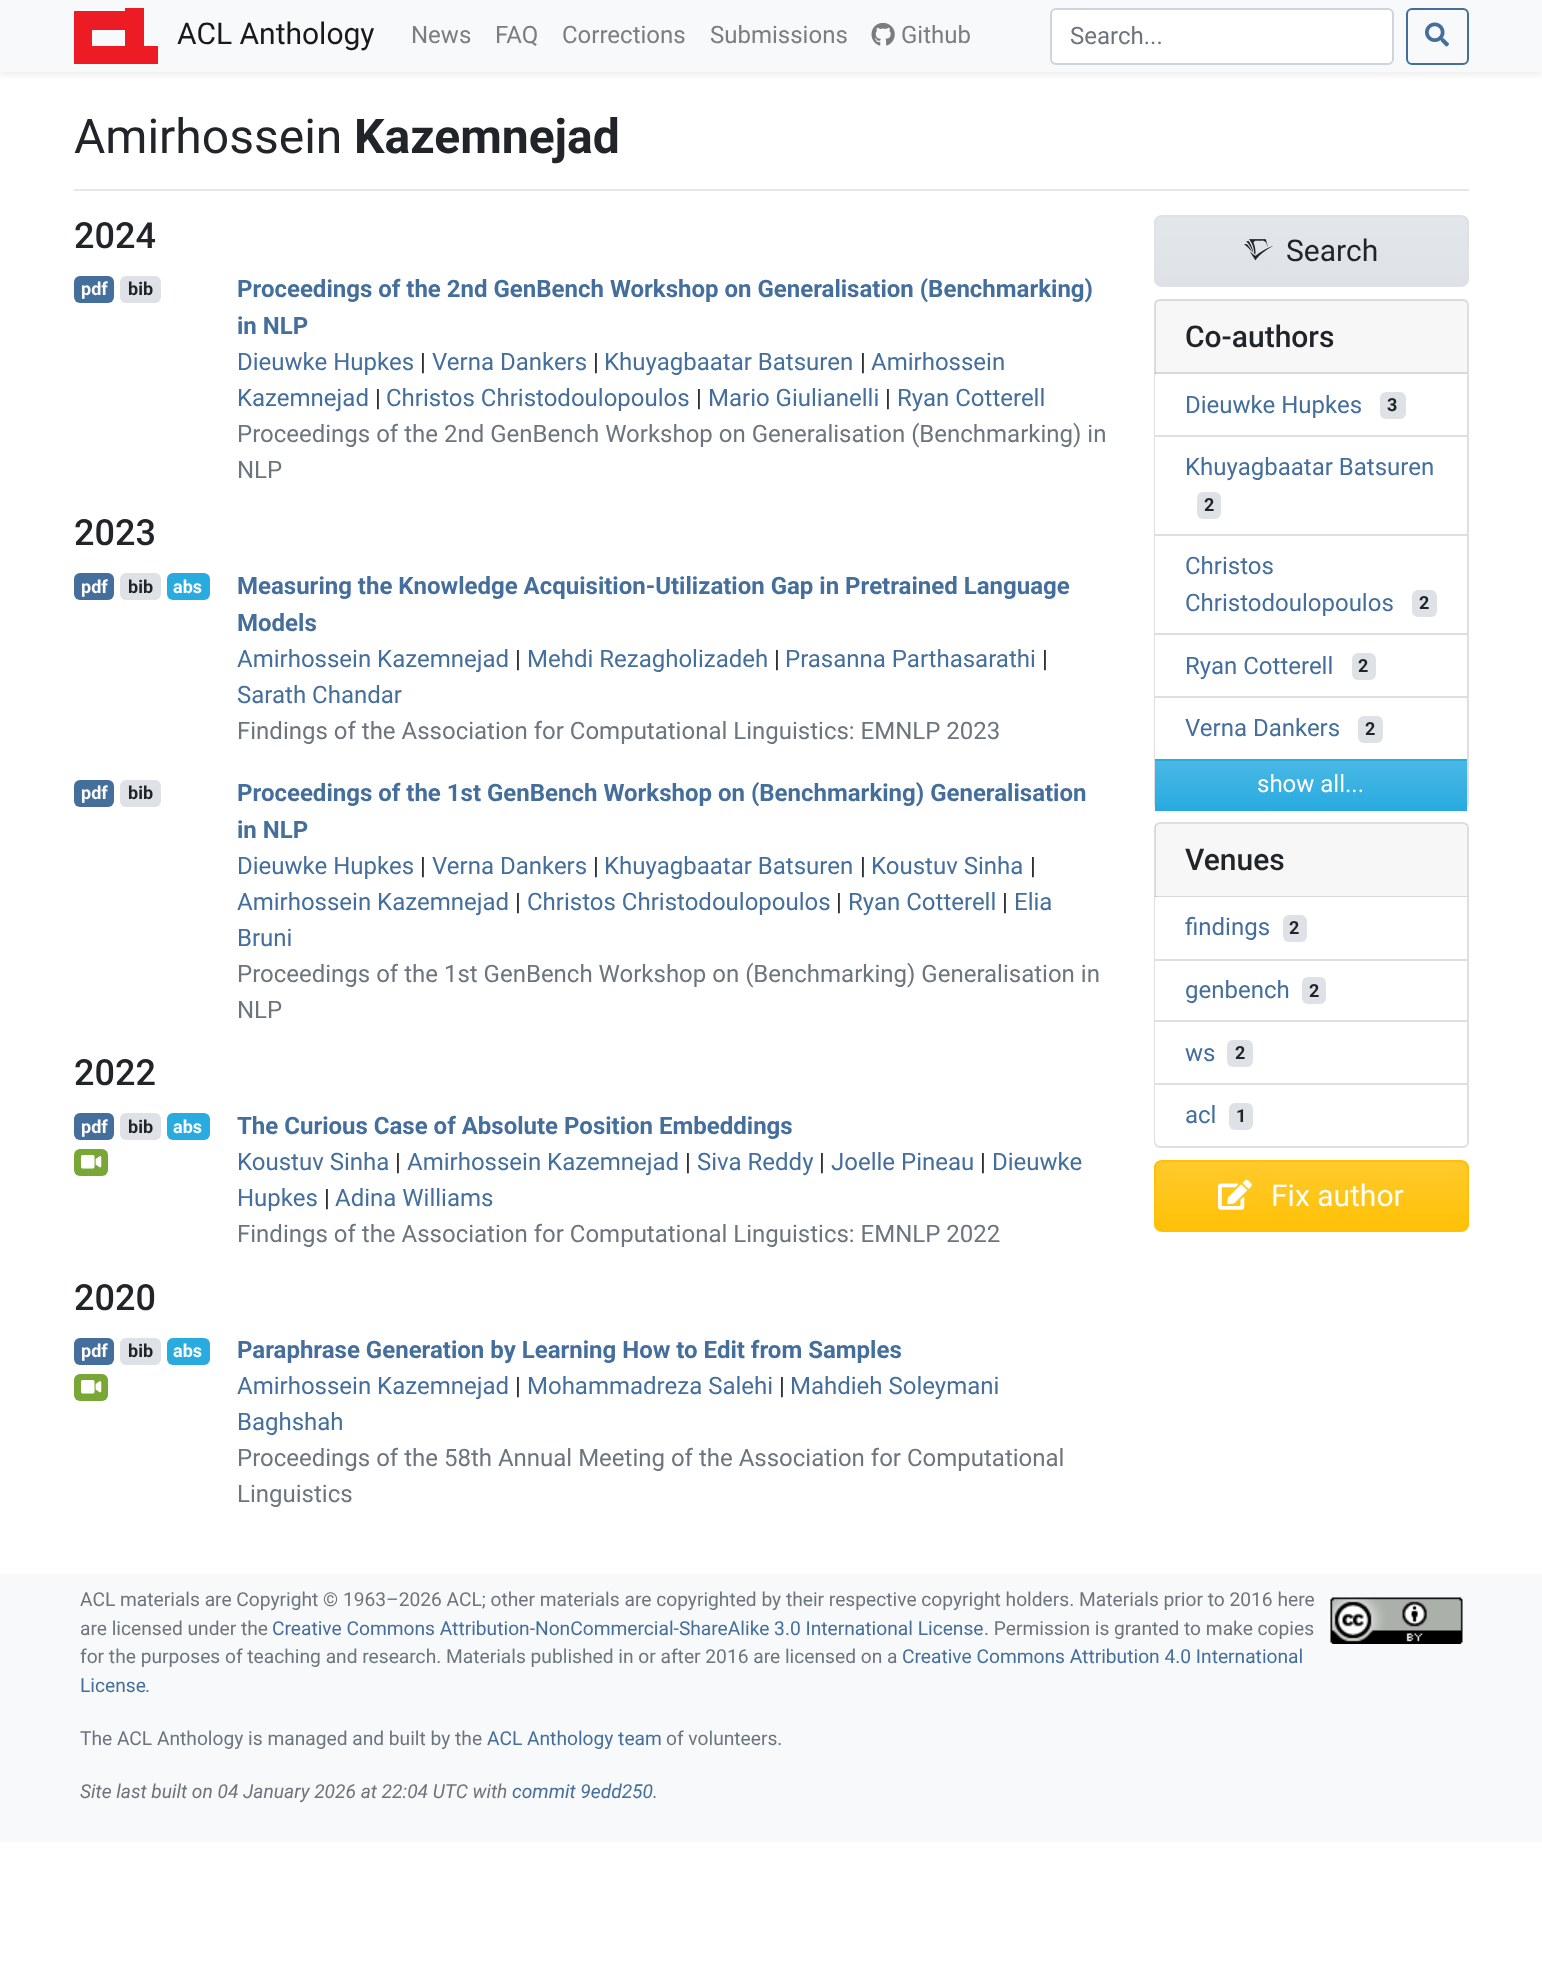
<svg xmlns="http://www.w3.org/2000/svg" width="1542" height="1968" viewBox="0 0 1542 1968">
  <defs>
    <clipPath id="clip1"><rect x="1154" y="215" width="315" height="72" rx="8"/></clipPath>
    <linearGradient id="g1" gradientUnits="userSpaceOnUse" x1="1311" y1="216" x2="1311" y2="285"><stop offset="0" stop-color="#e3e6ea"/><stop offset="1" stop-color="#dee2e6"/></linearGradient>
    <linearGradient id="g2" gradientUnits="userSpaceOnUse" x1="1311" y1="761" x2="1311" y2="809"><stop offset="0" stop-color="#49b8e5"/><stop offset="1" stop-color="#29abe0"/></linearGradient>
    <clipPath id="clip2"><rect x="1154" y="1160" width="315" height="72" rx="8"/></clipPath>
    <linearGradient id="g3" gradientUnits="userSpaceOnUse" x1="1311" y1="1161" x2="1311" y2="1230"><stop offset="0" stop-color="#ffca2c"/><stop offset="1" stop-color="#ffc107"/></linearGradient>
  </defs>
  <rect width="100%" height="100%" fill="#fff"/>
  <path d="M0 3h1542v72H0z" fill="#00000012" filter="blur(3px)"/>
  <path d="M0 0h1542v72H0z" fill="#f8f9fa"/>
  <path d="M125 8V11H74V64H158V46H144V8ZM92 30H125V46H92Z" fill="#ed1c24" fill-rule="evenodd"/>
  <image x="871" y="22" width="24" height="24" href="img/1.png"/>
  <rect x="1051" y="9" width="342" height="55" rx="5" fill="#fff" stroke="#ced4da" stroke-width="2"/>
  <rect x="1407" y="9" width="61" height="55" rx="5" fill="none" stroke="#446e9b" stroke-width="2"/>
  <image x="1425" y="22" width="24" height="25" href="img/2.png"/>
  <path d="M74 189h1395v2H74z" fill="#e6e6e6"/>
  <rect x="74" y="276" width="40" height="27" rx="6" fill="#446e9b"/>
  <rect x="120" y="276" width="41" height="27" rx="6" fill="#dee2e6"/>
  <rect x="74" y="573" width="40" height="27" rx="6" fill="#446e9b"/>
  <rect x="120" y="573" width="41" height="27" rx="6" fill="#dee2e6"/>
  <rect x="167" y="573" width="43" height="27" rx="6" fill="#29abe0"/>
  <rect x="74" y="780" width="40" height="27" rx="6" fill="#446e9b"/>
  <rect x="120" y="780" width="41" height="27" rx="6" fill="#dee2e6"/>
  <rect x="74" y="1113" width="40" height="27" rx="6" fill="#446e9b"/>
  <rect x="120" y="1113" width="41" height="27" rx="6" fill="#dee2e6"/>
  <rect x="167" y="1113" width="43" height="27" rx="6" fill="#29abe0"/>
  <rect x="74" y="1149" width="34" height="27" rx="6" fill="#79a736"/>
  <image x="81" y="1155" width="21" height="14" href="img/3.png"/>
  <rect x="74" y="1338" width="40" height="27" rx="6" fill="#446e9b"/>
  <rect x="120" y="1338" width="41" height="27" rx="6" fill="#dee2e6"/>
  <rect x="167" y="1338" width="43" height="27" rx="6" fill="#29abe0"/>
  <rect x="74" y="1374" width="34" height="27" rx="6" fill="#79a736"/>
  <image x="81" y="1380" width="21" height="14" href="img/3.png"/>
  <g clip-path="url(#clip1)">
    <path d="M1154 216h315v69H1154z" fill="url(#g1)"/>
  </g>
  <rect x="1155" y="216" width="313" height="70" rx="7" fill="none" stroke="#dee2e6" stroke-width="2"/>
  <image x="1244" y="239" width="29" height="22" href="img/4.png"/>
  <rect x="1155" y="300" width="313" height="509" rx="5" fill="none" stroke="#dfdfdf" stroke-width="2"/>
  <path d="M1155 300h312v74H1155z" fill="#00000008"/>
  <path d="M1155 372h312v2H1155z" fill="#0000001f"/>
  <path d="M1155 374h1v61H1155z" fill="#fff"/>
  <rect x="1380" y="392" width="26" height="27" rx="6" fill="#dee2e6"/>
  <path d="M1155 437h1v97H1155z" fill="#fff"/>
  <path d="M1155 435h312v2H1155z" fill="#dfdfdf"/>
  <rect x="1197" y="492" width="24" height="27" rx="6" fill="#dee2e6"/>
  <path d="M1155 536h1v97H1155z" fill="#fff"/>
  <path d="M1155 534h312v2H1155z" fill="#dfdfdf"/>
  <rect x="1412" y="590" width="25" height="27" rx="6" fill="#dee2e6"/>
  <path d="M1155 635h1v61H1155z" fill="#fff"/>
  <path d="M1155 633h312v2H1155z" fill="#dfdfdf"/>
  <rect x="1352" y="653" width="24" height="27" rx="6" fill="#dee2e6"/>
  <path d="M1155 698h1v61H1155z" fill="#fff"/>
  <path d="M1155 696h312v2H1155z" fill="#dfdfdf"/>
  <rect x="1358" y="716" width="25" height="27" rx="6" fill="#dee2e6"/>
  <path d="M1155 759h312v2H1155z" fill="#29abe0"/>
  <path d="M1155 761h312v48H1155z" fill="url(#g2)"/>
  <path d="M1155 809h312v2H1155z" fill="#29abe0"/>
  <rect x="1155" y="823" width="313" height="324" rx="5" fill="none" stroke="#dfdfdf" stroke-width="2"/>
  <path d="M1155 824h312v73H1155z" fill="#00000008"/>
  <path d="M1155 896h312v1H1155z" fill="#0000001f"/>
  <path d="M1155 897h1v62H1155z" fill="#fff"/>
  <rect x="1283" y="915" width="24" height="27" rx="6" fill="#dee2e6"/>
  <path d="M1155 961h1v59H1155z" fill="#fff"/>
  <path d="M1155 959h312v2H1155z" fill="#dfdfdf"/>
  <rect x="1302" y="977" width="24" height="27" rx="6" fill="#dee2e6"/>
  <path d="M1155 1022h1v61H1155z" fill="#fff"/>
  <path d="M1155 1020h312v2H1155z" fill="#dfdfdf"/>
  <rect x="1227" y="1040" width="26" height="27" rx="6" fill="#dee2e6"/>
  <path d="M1155 1083H1467V1140C1467 1143.5 1464.5 1146 1461 1146H1161C1157.5 1146 1155 1143.5 1155 1140Z" fill="#fff"/>
  <path d="M1155 1083h312v2H1155z" fill="#dfdfdf"/>
  <rect x="1229" y="1103" width="24" height="27" rx="6" fill="#dee2e6"/>
  <g clip-path="url(#clip2)">
    <path d="M1154 1161h315v69H1154z" fill="url(#g3)"/>
  </g>
  <rect x="1155" y="1161" width="313" height="70" rx="7" fill="none" stroke="#ffc107" stroke-width="2"/>
  <image x="1218" y="1179" width="34" height="31" href="img/5.png"/>
  <path d="M0 1574h1542v268H0z" fill="#f8f9fa"/>
  <image x="1330" y="1597" width="133" height="47" href="img/6.png"/>
  <text x="177" y="44" font-family="Roboto" font-size="30" fill="#191919">ACL Anthology</text>
  <g font-family="Roboto" font-size="24" fill="#7c7d7d">
    <text x="411" y="43">News</text>
    <text x="495" y="43">FAQ</text>
    <text x="562" y="43">Corrections</text>
    <text x="710" y="43">Submissions</text>
    <text x="901" y="43">Github</text>
  </g>
  <text x="1070" y="44" font-family="Roboto" font-size="24" fill="#6c757d">Search...</text>
  <text x="74" y="153" font-family="Roboto" font-size="48" fill="#212529">Amirhossein</text>
  <text x="354" y="153" font-family="Roboto" font-size="48" font-weight="bold" fill="#212529">Kazemnejad</text>
  <text x="74" y="248" font-family="Roboto" font-size="36" font-weight="500" fill="#212529">2024</text>
  <text x="81" y="295" font-family="Roboto" font-size="18" font-weight="bold" fill="#fff">pdf</text>
  <text x="128" y="295" font-family="Roboto" font-size="18" font-weight="bold" fill="#212529">bib</text>
  <g font-family="Roboto" font-size="24" font-weight="bold" fill="#446e9b">
    <text x="237" y="297">Proceedings of the 2nd GenBench Workshop on Generalisation (Benchmarking)</text>
    <text x="237" y="334">in NLP</text>
  </g>
  <text x="237" y="370" font-family="Roboto" font-size="24" fill="#446e9b">Dieuwke Hupkes</text>
  <text x="420" y="370" font-family="Roboto" font-size="24" fill="#212529">|</text>
  <text x="432" y="370" font-family="Roboto" font-size="24" fill="#446e9b">Verna Dankers</text>
  <text x="593" y="370" font-family="Roboto" font-size="24" fill="#212529">|</text>
  <text x="604" y="370" font-family="Roboto" font-size="24" fill="#446e9b">Khuyagbaatar Batsuren</text>
  <text x="860" y="370" font-family="Roboto" font-size="24" fill="#212529">|</text>
  <g font-family="Roboto" font-size="24" fill="#446e9b">
    <text x="871" y="370">Amirhossein</text>
    <text x="237" y="406">Kazemnejad</text>
  </g>
  <text x="375" y="406" font-family="Roboto" font-size="24" fill="#212529">|</text>
  <text x="386" y="406" font-family="Roboto" font-size="24" fill="#446e9b">Christos Christodoulopoulos</text>
  <text x="696" y="406" font-family="Roboto" font-size="24" fill="#212529">|</text>
  <text x="708" y="406" font-family="Roboto" font-size="24" fill="#446e9b">Mario Giulianelli</text>
  <text x="885" y="406" font-family="Roboto" font-size="24" fill="#212529">|</text>
  <text x="897" y="406" font-family="Roboto" font-size="24" fill="#446e9b">Ryan Cotterell</text>
  <g font-family="Roboto" font-size="24" fill="#6c757d">
    <text x="237" y="442">Proceedings of the 2nd GenBench Workshop on Generalisation (Benchmarking) in</text>
    <text x="237" y="478">NLP</text>
  </g>
  <text x="74" y="545" font-family="Roboto" font-size="36" font-weight="500" fill="#212529">2023</text>
  <text x="81" y="593" font-family="Roboto" font-size="18" font-weight="bold" fill="#fff">pdf</text>
  <text x="128" y="593" font-family="Roboto" font-size="18" font-weight="bold" fill="#212529">bib</text>
  <text x="173" y="593" font-family="Roboto" font-size="18" font-weight="bold" fill="#fff">abs</text>
  <g font-family="Roboto" font-size="24" font-weight="bold" fill="#446e9b">
    <text x="237" y="594">Measuring the Knowledge Acquisition-Utilization Gap in Pretrained Language</text>
    <text x="237" y="631">Models</text>
  </g>
  <text x="237" y="667" font-family="Roboto" font-size="24" fill="#446e9b">Amirhossein Kazemnejad</text>
  <text x="515" y="667" font-family="Roboto" font-size="24" fill="#212529">|</text>
  <text x="527" y="667" font-family="Roboto" font-size="24" fill="#446e9b">Mehdi Rezagholizadeh</text>
  <text x="774" y="667" font-family="Roboto" font-size="24" fill="#212529">|</text>
  <text x="785" y="667" font-family="Roboto" font-size="24" fill="#446e9b">Prasanna Parthasarathi</text>
  <text x="1042" y="667" font-family="Roboto" font-size="24" fill="#212529">|</text>
  <text x="237" y="703" font-family="Roboto" font-size="24" fill="#446e9b">Sarath Chandar</text>
  <text x="237" y="739" font-family="Roboto" font-size="24" fill="#6c757d">Findings of the Association for Computational Linguistics: EMNLP 2023</text>
  <text x="81" y="799" font-family="Roboto" font-size="18" font-weight="bold" fill="#fff">pdf</text>
  <text x="128" y="799" font-family="Roboto" font-size="18" font-weight="bold" fill="#212529">bib</text>
  <g font-family="Roboto" font-size="24" font-weight="bold" fill="#446e9b">
    <text x="237" y="801">Proceedings of the 1st GenBench Workshop on (Benchmarking) Generalisation</text>
    <text x="237" y="838">in NLP</text>
  </g>
  <text x="237" y="874" font-family="Roboto" font-size="24" fill="#446e9b">Dieuwke Hupkes</text>
  <text x="420" y="874" font-family="Roboto" font-size="24" fill="#212529">|</text>
  <text x="432" y="874" font-family="Roboto" font-size="24" fill="#446e9b">Verna Dankers</text>
  <text x="593" y="874" font-family="Roboto" font-size="24" fill="#212529">|</text>
  <text x="604" y="874" font-family="Roboto" font-size="24" fill="#446e9b">Khuyagbaatar Batsuren</text>
  <text x="860" y="874" font-family="Roboto" font-size="24" fill="#212529">|</text>
  <text x="871" y="874" font-family="Roboto" font-size="24" fill="#446e9b">Koustuv Sinha</text>
  <text x="1030" y="874" font-family="Roboto" font-size="24" fill="#212529">|</text>
  <text x="237" y="910" font-family="Roboto" font-size="24" fill="#446e9b">Amirhossein Kazemnejad</text>
  <text x="515" y="910" font-family="Roboto" font-size="24" fill="#212529">|</text>
  <text x="527" y="910" font-family="Roboto" font-size="24" fill="#446e9b">Christos Christodoulopoulos</text>
  <text x="836" y="910" font-family="Roboto" font-size="24" fill="#212529">|</text>
  <text x="848" y="910" font-family="Roboto" font-size="24" fill="#446e9b">Ryan Cotterell</text>
  <text x="1002" y="910" font-family="Roboto" font-size="24" fill="#212529">|</text>
  <g font-family="Roboto" font-size="24" fill="#446e9b">
    <text x="1014" y="910">Elia</text>
    <text x="237" y="946">Bruni</text>
  </g>
  <g font-family="Roboto" font-size="24" fill="#6c757d">
    <text x="237" y="982">Proceedings of the 1st GenBench Workshop on (Benchmarking) Generalisation in</text>
    <text x="237" y="1018">NLP</text>
  </g>
  <text x="74" y="1085" font-family="Roboto" font-size="36" font-weight="500" fill="#212529">2022</text>
  <text x="81" y="1133" font-family="Roboto" font-size="18" font-weight="bold" fill="#fff">pdf</text>
  <text x="128" y="1133" font-family="Roboto" font-size="18" font-weight="bold" fill="#212529">bib</text>
  <text x="173" y="1133" font-family="Roboto" font-size="18" font-weight="bold" fill="#fff">abs</text>
  <text x="237" y="1134" font-family="Roboto" font-size="24" font-weight="bold" fill="#446e9b">The Curious Case of Absolute Position Embeddings</text>
  <text x="237" y="1170" font-family="Roboto" font-size="24" fill="#446e9b">Koustuv Sinha</text>
  <text x="395" y="1170" font-family="Roboto" font-size="24" fill="#212529">|</text>
  <text x="407" y="1170" font-family="Roboto" font-size="24" fill="#446e9b">Amirhossein Kazemnejad</text>
  <text x="685" y="1170" font-family="Roboto" font-size="24" fill="#212529">|</text>
  <text x="697" y="1170" font-family="Roboto" font-size="24" fill="#446e9b">Siva Reddy</text>
  <text x="819" y="1170" font-family="Roboto" font-size="24" fill="#212529">|</text>
  <text x="831" y="1170" font-family="Roboto" font-size="24" fill="#446e9b">Joelle Pineau</text>
  <text x="980" y="1170" font-family="Roboto" font-size="24" fill="#212529">|</text>
  <g font-family="Roboto" font-size="24" fill="#446e9b">
    <text x="992" y="1170">Dieuwke</text>
    <text x="237" y="1206">Hupkes</text>
  </g>
  <text x="324" y="1206" font-family="Roboto" font-size="24" fill="#212529">|</text>
  <text x="335" y="1206" font-family="Roboto" font-size="24" fill="#446e9b">Adina Williams</text>
  <text x="237" y="1242" font-family="Roboto" font-size="24" fill="#6c757d">Findings of the Association for Computational Linguistics: EMNLP 2022</text>
  <text x="74" y="1310" font-family="Roboto" font-size="36" font-weight="500" fill="#212529">2020</text>
  <text x="81" y="1357" font-family="Roboto" font-size="18" font-weight="bold" fill="#fff">pdf</text>
  <text x="128" y="1357" font-family="Roboto" font-size="18" font-weight="bold" fill="#212529">bib</text>
  <text x="173" y="1357" font-family="Roboto" font-size="18" font-weight="bold" fill="#fff">abs</text>
  <text x="237" y="1358" font-family="Roboto" font-size="24" font-weight="bold" fill="#446e9b">Paraphrase Generation by Learning How to Edit from Samples</text>
  <text x="237" y="1394" font-family="Roboto" font-size="24" fill="#446e9b">Amirhossein Kazemnejad</text>
  <text x="515" y="1394" font-family="Roboto" font-size="24" fill="#212529">|</text>
  <text x="527" y="1394" font-family="Roboto" font-size="24" fill="#446e9b">Mohammadreza Salehi</text>
  <text x="779" y="1394" font-family="Roboto" font-size="24" fill="#212529">|</text>
  <g font-family="Roboto" font-size="24" fill="#446e9b">
    <text x="790" y="1394">Mahdieh Soleymani</text>
    <text x="237" y="1430">Baghshah</text>
  </g>
  <g font-family="Roboto" font-size="24" fill="#6c757d">
    <text x="237" y="1466">Proceedings of the 58th Annual Meeting of the Association for Computational</text>
    <text x="237" y="1502">Linguistics</text>
  </g>
  <text x="1286" y="261" font-family="Roboto" font-size="30" fill="#212529">Search</text>
  <text x="1185" y="347" font-family="Roboto" font-size="30" font-weight="500" fill="#212529">Co-authors</text>
  <text x="1185" y="413" font-family="Roboto" font-size="24" fill="#446e9b">Dieuwke Hupkes</text>
  <text x="1387" y="411" font-family="Roboto" font-size="18" font-weight="bold" fill="#212529">3</text>
  <text x="1185" y="475" font-family="Roboto" font-size="24" fill="#446e9b">Khuyagbaatar Batsuren</text>
  <text x="1204" y="511" font-family="Roboto" font-size="18" font-weight="bold" fill="#212529">2</text>
  <g font-family="Roboto" font-size="24" fill="#446e9b">
    <text x="1185" y="574">Christos</text>
    <text x="1185" y="611">Christodoulopoulos</text>
  </g>
  <text x="1419" y="609" font-family="Roboto" font-size="18" font-weight="bold" fill="#212529">2</text>
  <text x="1185" y="674" font-family="Roboto" font-size="24" fill="#446e9b">Ryan Cotterell</text>
  <text x="1358" y="672" font-family="Roboto" font-size="18" font-weight="bold" fill="#212529">2</text>
  <text x="1185" y="736" font-family="Roboto" font-size="24" fill="#446e9b">Verna Dankers</text>
  <text x="1365" y="735" font-family="Roboto" font-size="18" font-weight="bold" fill="#212529">2</text>
  <text x="1257" y="792" font-family="Roboto" font-size="24" fill="#fff">show all...</text>
  <text x="1185" y="870" font-family="Roboto" font-size="30" font-weight="500" fill="#212529">Venues</text>
  <text x="1185" y="935" font-family="Roboto" font-size="24" fill="#446e9b">findings</text>
  <text x="1289" y="934" font-family="Roboto" font-size="18" font-weight="bold" fill="#212529">2</text>
  <text x="1185" y="998" font-family="Roboto" font-size="24" fill="#446e9b">genbench</text>
  <text x="1309" y="997" font-family="Roboto" font-size="18" font-weight="bold" fill="#212529">2</text>
  <text x="1185" y="1061" font-family="Roboto" font-size="24" fill="#446e9b">ws</text>
  <text x="1235" y="1059" font-family="Roboto" font-size="18" font-weight="bold" fill="#212529">2</text>
  <text x="1185" y="1123" font-family="Roboto" font-size="24" fill="#446e9b">acl</text>
  <text x="1236" y="1122" font-family="Roboto" font-size="18" font-weight="bold" fill="#212529">1</text>
  <text x="1271" y="1206" font-family="Roboto" font-size="30" fill="#fff">Fix author</text>
  <g font-family="Roboto" font-size="19.2" fill="#6c757d">
    <text x="80" y="1606">ACL materials are Copyright © 1963–2026 ACL; other materials are copyrighted by their respective copyright holders. Materials prior to 2016 here</text>
    <text x="80" y="1635">are licensed under the</text>
  </g>
  <text x="272" y="1635" font-family="Roboto" font-size="19.2" fill="#446e9b">Creative Commons Attribution-NonCommercial-ShareAlike 3.0 International License</text>
  <g font-family="Roboto" font-size="19.2" fill="#6c757d">
    <text x="984" y="1635">. Permission is granted to make copies</text>
    <text x="80" y="1663">for the purposes of teaching and research. Materials published in or after 2016 are licensed on a</text>
  </g>
  <g font-family="Roboto" font-size="19.2" fill="#446e9b">
    <text x="902" y="1663">Creative Commons Attribution 4.0 International</text>
    <text x="80" y="1692">License</text>
  </g>
  <g font-family="Roboto" font-size="19.2" fill="#6c757d">
    <text x="145" y="1692">.</text>
    <text x="80" y="1745">The ACL Anthology is managed and built by the</text>
  </g>
  <text x="487" y="1745" font-family="Roboto" font-size="19.2" fill="#446e9b">ACL Anthology team</text>
  <text x="666" y="1745" font-family="Roboto" font-size="19.2" fill="#6c757d">of volunteers.</text>
  <text x="80" y="1798" font-family="Roboto" font-size="19.2" font-style="italic" fill="#6c757d">Site last built on 04 January 2026 at 22:04 UTC with</text>
  <text x="512" y="1798" font-family="Roboto" font-size="19.2" font-style="italic" fill="#446e9b">commit 9edd250</text>
  <text x="653" y="1798" font-family="Roboto" font-size="19.2" font-style="italic" fill="#6c757d">.</text>
</svg>
